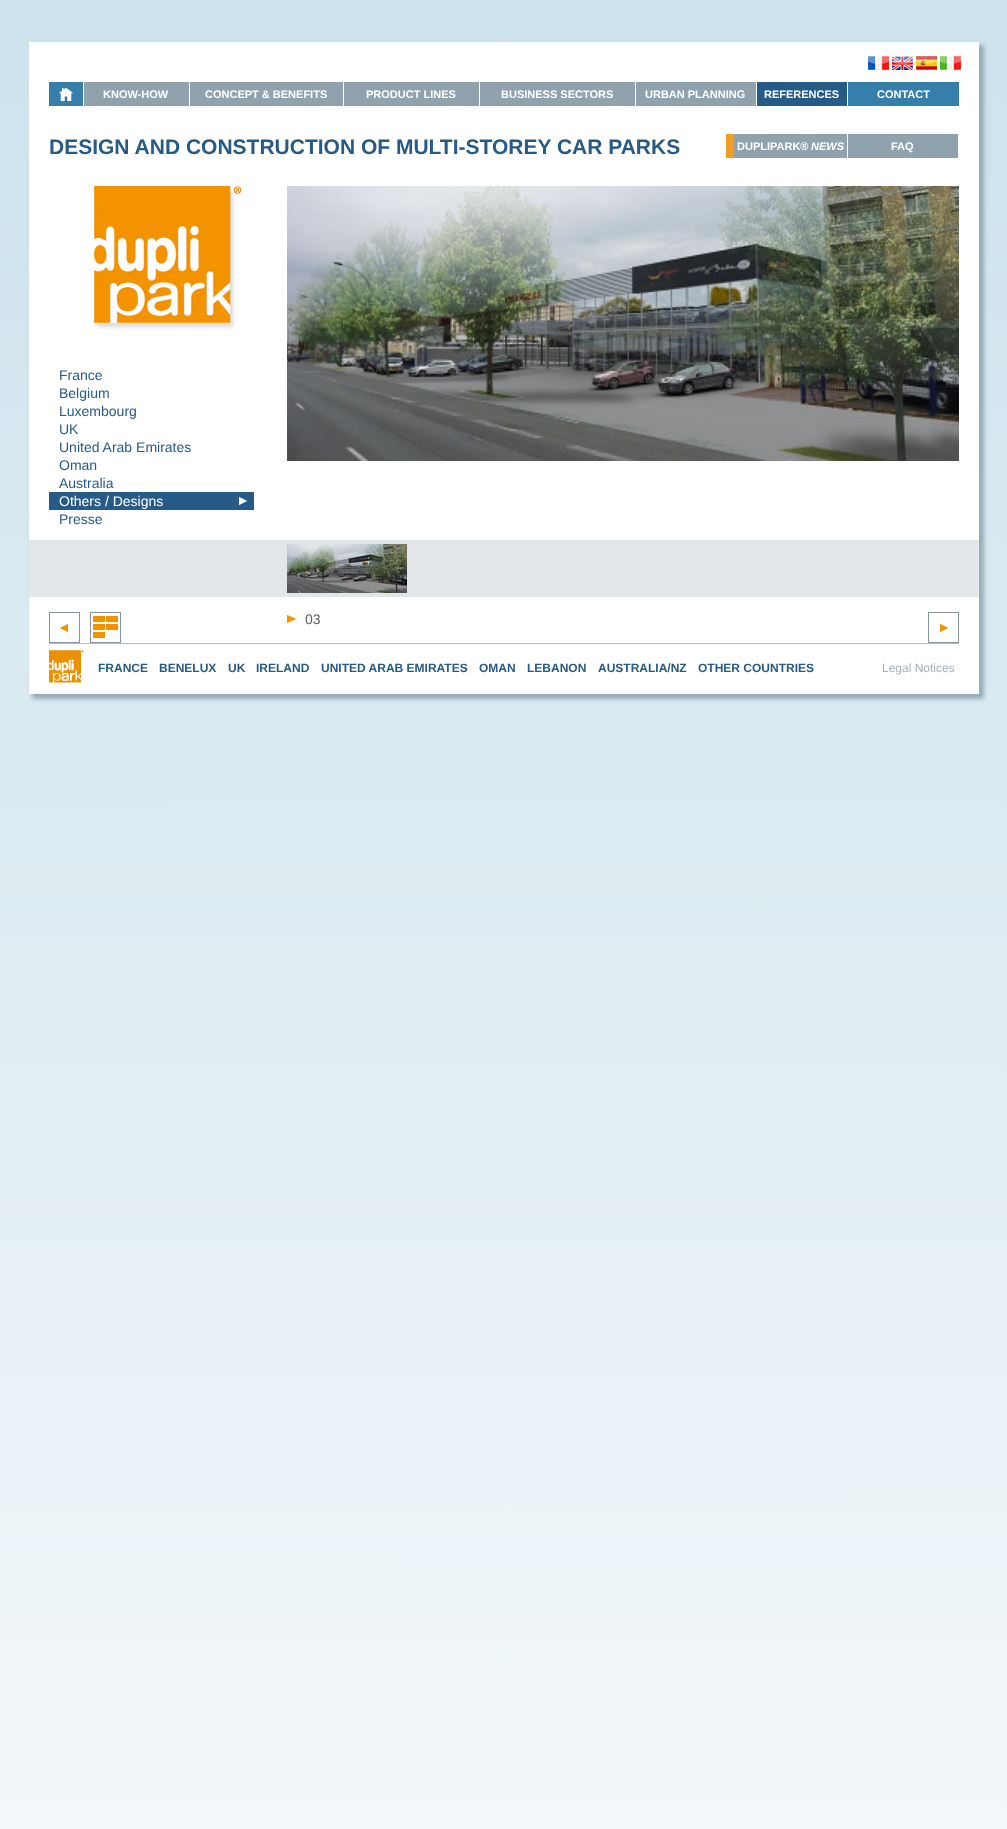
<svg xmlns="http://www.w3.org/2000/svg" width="1007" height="1829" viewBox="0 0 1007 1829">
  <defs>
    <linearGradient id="g1" gradientUnits="userSpaceOnUse" x1="503" y1="0" x2="504" y2="1829"><stop offset="0" stop-color="#cce2ec"/><stop offset="1" stop-color="#f2f7fa"/></linearGradient>
  </defs>
  <rect width="100%" height="100%" fill="#fff"/>
  <path d="M0 0h1007v1829H0z" fill="url(#g1)"/>
  <path d="M32 45h952v654H32z" fill="#94adb7" filter="blur(2px)"/>
  <path d="M29 42h950v652H29z" fill="#fff"/>
  <image x="868" y="56" width="93" height="14" href="img/1.png"/>
  <path d="M84 82h672v24H84z" fill="#90a2ad"/>
  <path d="M49 82h34v24H49z" fill="#377fab"/>
  <image x="59" y="88" width="14" height="13" href="img/2.png"/>
  <path d="M189 82h1v24H189z" fill="#fff"/>
  <path d="M343 82h1v24H343z" fill="#fff"/>
  <path d="M479 82h1v24H479z" fill="#fff"/>
  <path d="M635 82h1v24H635z" fill="#fff"/>
  <path d="M757 82h90v24H757z" fill="#265b88"/>
  <path d="M848 82h111v24H848z" fill="#377fab"/>
  <path d="M734 134h113v24H734z" fill="#90a2ad"/>
  <path d="M726 134h8v24H726z" fill="#f39e1f"/>
  <path d="M848 134h110v24H848z" fill="#90a2ad"/>
  <image x="94" y="186" width="148" height="144" href="img/3.png"/>
  <path d="M49 492h205v18H49z" fill="#265b88"/>
  <image x="239" y="497" width="8" height="8" href="img/4.png"/>
  <image x="287" y="186" width="672" height="275" href="img/5.png"/>
  <path d="M29 540h950v57H29z" fill="#e3e6e8"/>
  <image x="287" y="544" width="120" height="49" href="img/6.png"/>
  <image x="49" y="612" width="31" height="31" href="img/7.png"/>
  <image x="90" y="612" width="31" height="31" href="img/8.png"/>
  <image x="287" y="615" width="9" height="8" href="img/9.png"/>
  <image x="928" y="612" width="31" height="31" href="img/10.png"/>
  <path d="M49 643h910v1H49z" fill="#aabfca"/>
  <image x="49" y="650" width="35" height="33" href="img/11.png"/>
  <g font-family="Liberation Sans" font-size="11" font-weight="bold" fill="#fff">
    <text x="103" y="98">KNOW-HOW</text>
    <text x="205" y="98">CONCEPT &amp; BENEFITS</text>
    <text x="366" y="98">PRODUCT LINES</text>
    <text x="501" y="98">BUSINESS SECTORS</text>
    <text x="645" y="98">URBAN PLANNING</text>
    <text x="764" y="98">REFERENCES</text>
    <text x="877" y="98">CONTACT</text>
  </g>
  <text x="49" y="154" font-family="Liberation Sans" font-size="21" font-weight="bold" fill="#265b88">DESIGN AND CONSTRUCTION OF MULTI-STOREY CAR PARKS</text>
  <text x="737" y="150" font-family="Liberation Sans" font-size="11" font-weight="bold" fill="#fff">DUPLIPARK®</text>
  <text x="811" y="150" font-family="Liberation Sans" font-size="11" font-weight="bold" font-style="italic" fill="#fff">NEWS</text>
  <text x="891" y="150" font-family="Liberation Sans" font-size="11" font-weight="bold" fill="#fff">FAQ</text>
  <g font-family="Liberation Sans" font-size="14" fill="#265b88">
    <text x="59" y="380">France</text>
    <text x="59" y="398">Belgium</text>
    <text x="59" y="416">Luxembourg</text>
    <text x="59" y="434">UK</text>
    <text x="59" y="452">United Arab Emirates</text>
    <text x="59" y="470">Oman</text>
    <text x="59" y="488">Australia</text>
  </g>
  <text x="59" y="506" font-family="Liberation Sans" font-size="14" fill="#fff">Others / Designs</text>
  <text x="59" y="524" font-family="Liberation Sans" font-size="14" fill="#265b88">Presse</text>
  <text x="305" y="624" font-family="Liberation Sans" font-size="14" fill="#5a6065">03</text>
  <g font-family="Liberation Sans" font-size="12" font-weight="bold" fill="#265b88">
    <text x="98" y="672">FRANCE</text>
    <text x="159" y="672">BENELUX</text>
    <text x="228" y="672">UK</text>
    <text x="256" y="672">IRELAND</text>
    <text x="321" y="672">UNITED ARAB EMIRATES</text>
    <text x="479" y="672">OMAN</text>
    <text x="527" y="672">LEBANON</text>
    <text x="598" y="672">AUSTRALIA/NZ</text>
    <text x="698" y="672">OTHER COUNTRIES</text>
  </g>
  <text x="882" y="672" font-family="Liberation Sans" font-size="12" fill="#9fb1ba">Legal Notices</text>
</svg>
